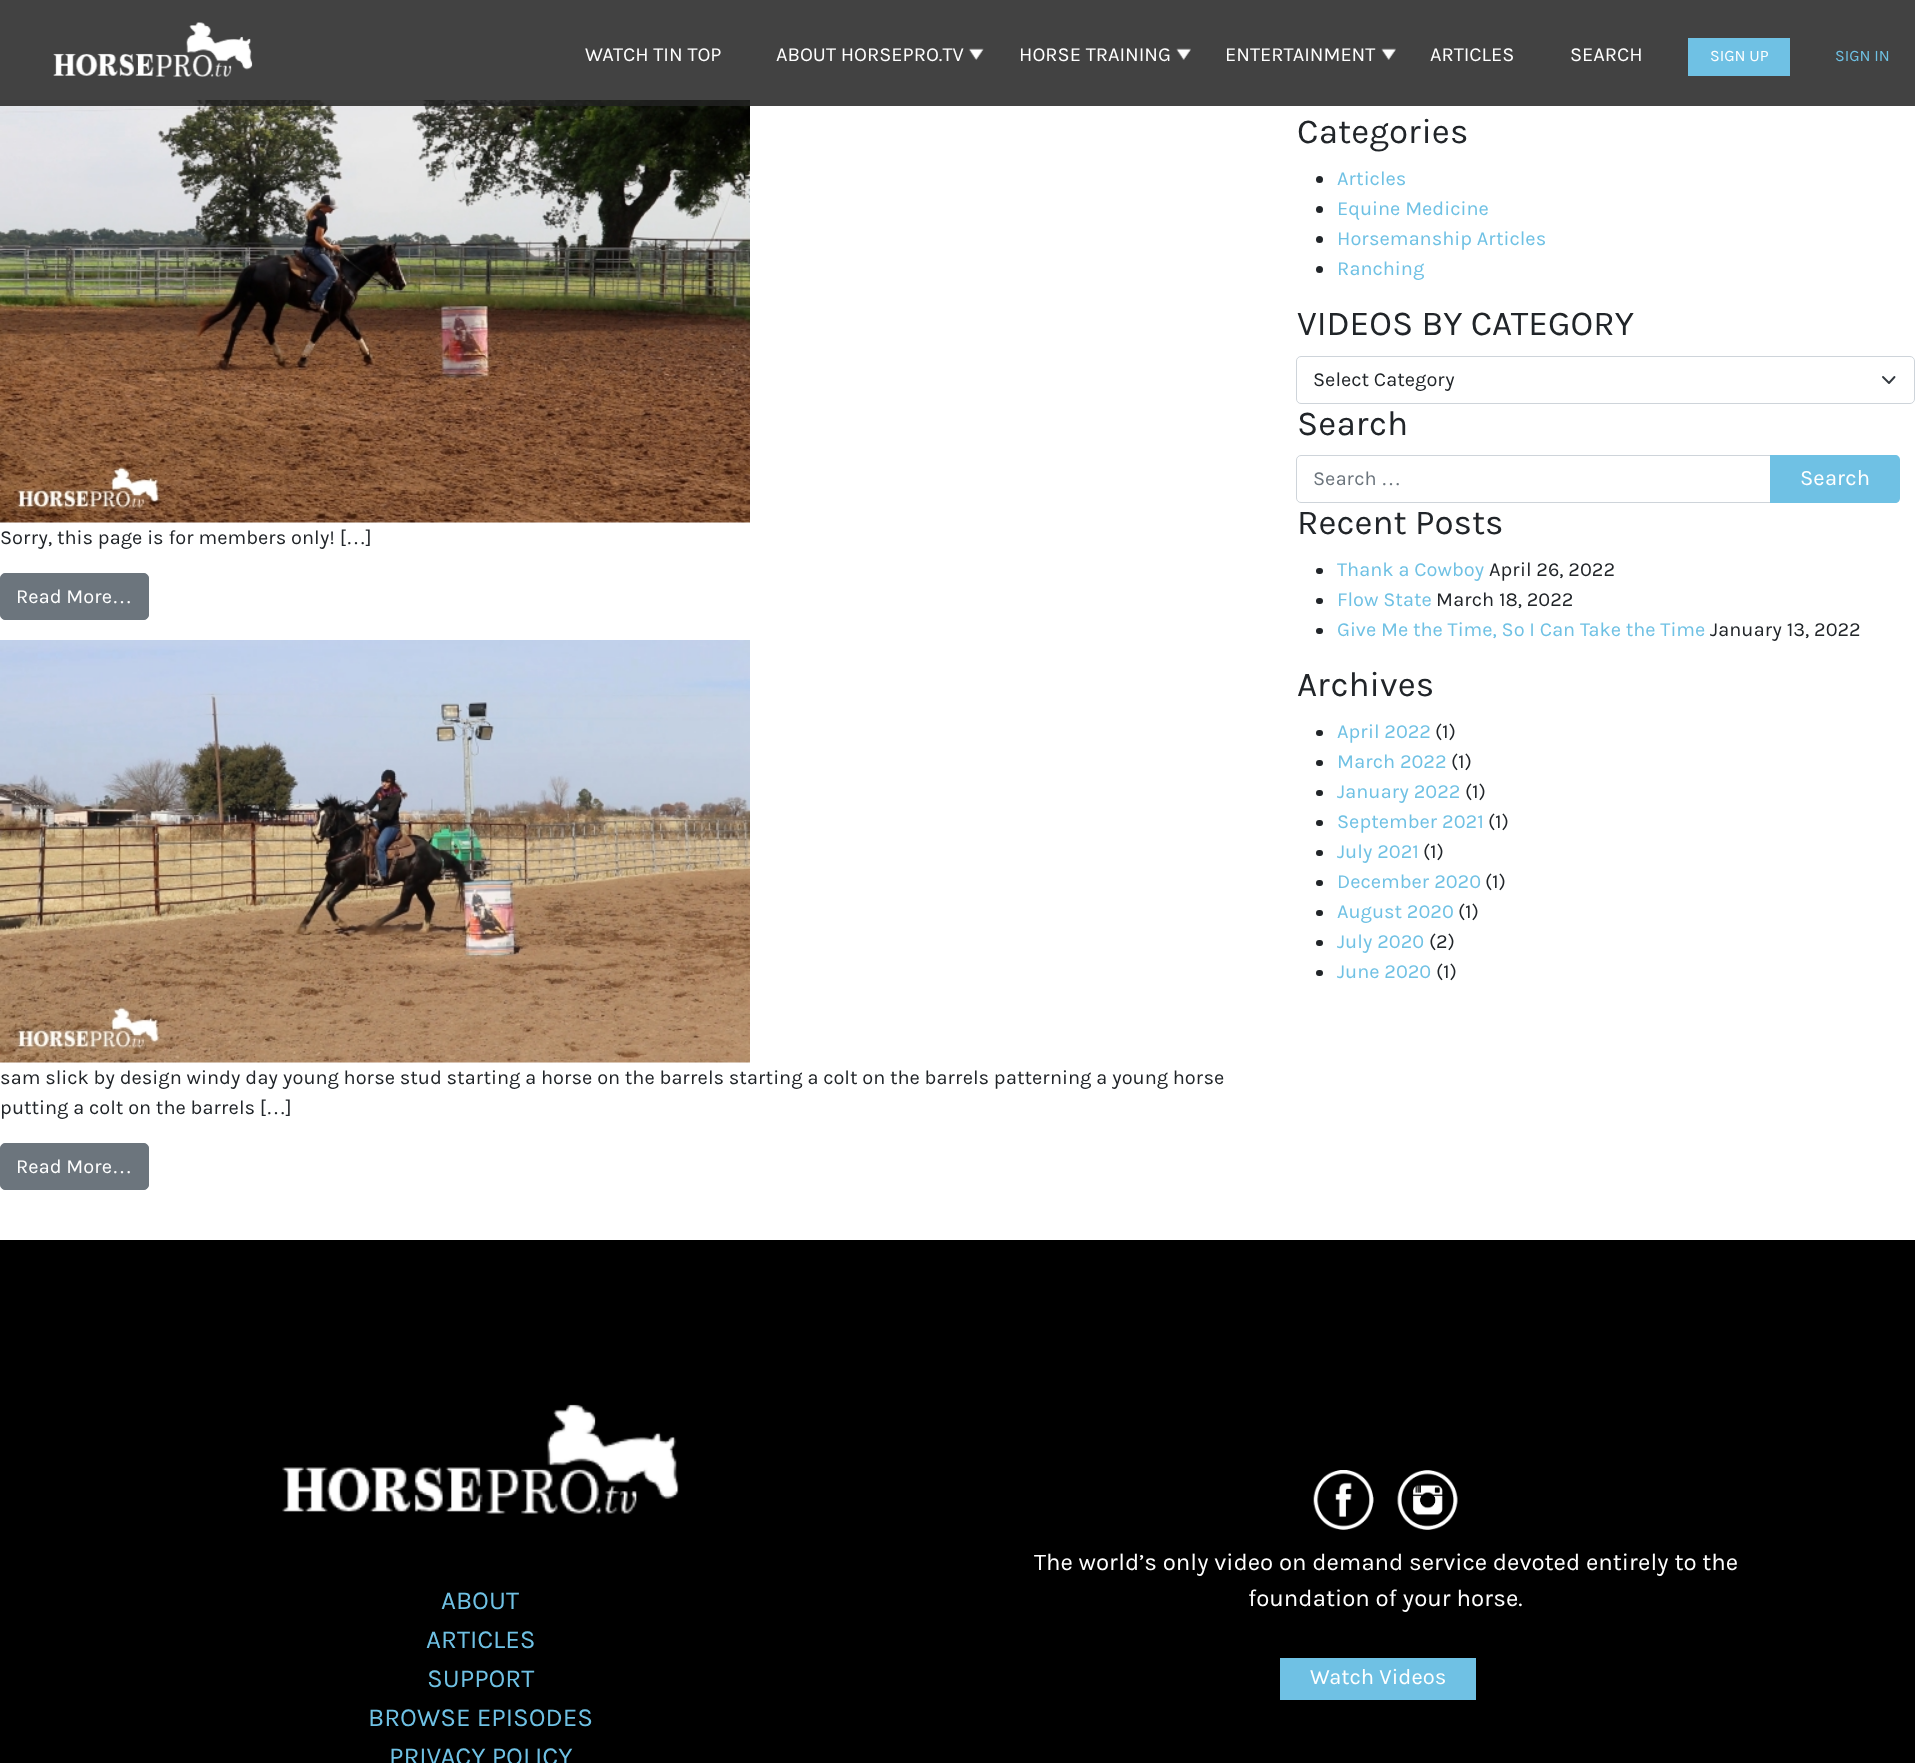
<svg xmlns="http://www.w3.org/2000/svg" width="1915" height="1763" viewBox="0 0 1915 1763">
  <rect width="100%" height="100%" fill="#fff"/>
  <image x="0" y="100" width="750" height="423" href="img/5.png"/>
  <path d="M0 0h1915v106H0z" fill="#212121d9"/>
  <image x="53" y="22" width="200" height="55" href="img/1.png"/>
  <image x="968" y="48" width="16" height="12" href="img/2.png"/>
  <image x="1176" y="48" width="15" height="12" href="img/3.png"/>
  <image x="1381" y="48" width="15" height="12" href="img/4.png"/>
  <path d="M1688 38h102v38H1688z" fill="#6fc1e4"/>
  <rect x="0.5" y="573.5" width="148" height="46" rx="4.5" fill="#6c757d" stroke="#6c757d"/>
  <image x="0" y="640" width="750" height="423" href="img/6.png"/>
  <rect x="0.5" y="1143.5" width="148" height="46" rx="4.5" fill="#6c757d" stroke="#6c757d"/>
  <circle cx="1319.5" cy="179.5" r="3.5" fill="#212529"/>
  <circle cx="1319.5" cy="209.5" r="3.5" fill="#212529"/>
  <circle cx="1319.5" cy="239.5" r="3.5" fill="#212529"/>
  <circle cx="1319.5" cy="269.5" r="3.5" fill="#212529"/>
  <path d="M1883 377L1889 383L1894.5 377" fill="none" stroke="#343a40" stroke-width="1.9" stroke-linecap="round" stroke-linejoin="round"/>
  <rect x="1296.5" y="356.5" width="618" height="47" rx="4.5" fill="none" stroke="#ced4da"/>
  <path d="M1301 455.5H1770.5V502.5H1301C1298.5 502.5 1296.5 500.5 1296.5 498V460C1296.5 457.5 1298.5 455.5 1301 455.5Z" fill="none" stroke="#ced4da"/>
  <path d="M1770 455H1895C1898 455 1900 457 1900 460V498C1900 501 1898 503 1895 503H1770Z" fill="#6fc1e4"/>
  <rect x="1316" y="568" width="7" height="6" rx="3" fill="#212529"/>
  <rect x="1316" y="598" width="7" height="6" rx="3" fill="#212529"/>
  <rect x="1316" y="628" width="7" height="6" rx="3" fill="#212529"/>
  <rect x="1316" y="730" width="7" height="6" rx="3" fill="#212529"/>
  <rect x="1316" y="760" width="7" height="6" rx="3" fill="#212529"/>
  <rect x="1316" y="790" width="7" height="6" rx="3" fill="#212529"/>
  <rect x="1316" y="820" width="7" height="6" rx="3" fill="#212529"/>
  <rect x="1316" y="850" width="7" height="6" rx="3" fill="#212529"/>
  <rect x="1316" y="880" width="7" height="6" rx="3" fill="#212529"/>
  <rect x="1316" y="910" width="7" height="6" rx="3" fill="#212529"/>
  <rect x="1316" y="940" width="7" height="6" rx="3" fill="#212529"/>
  <rect x="1316" y="970" width="7" height="6" rx="3" fill="#212529"/>
  <path d="M0 1240h1915v523H0z" fill="#000"/>
  <image x="282" y="1404" width="397" height="110" href="img/7.png"/>
  <image x="1313" y="1470" width="61" height="60" href="img/8.png"/>
  <image x="1397" y="1470" width="61" height="60" href="img/9.png"/>
  <path d="M1280 1658h196v42H1280z" fill="#6fc1e4"/>
  <g font-family="Karla" font-size="20" fill="#fff">
    <text x="585" y="61">WATCH TIN TOP</text>
    <text x="776" y="61">ABOUT HORSEPRO.TV</text>
    <text x="1019" y="61">HORSE TRAINING</text>
    <text x="1225" y="61">ENTERTAINMENT</text>
    <text x="1430" y="61">ARTICLES</text>
    <text x="1570" y="61">SEARCH</text>
  </g>
  <text x="1710" y="61" font-family="Karla" font-size="16" fill="#fff">SIGN UP</text>
  <text x="1835" y="61" font-family="Karla" font-size="16" fill="#6fc1e4">SIGN IN</text>
  <text x="0" y="544" font-family="Karla" font-size="20" fill="#212529">Sorry, this page is for members only! [</text>
  <text x="346" y="544" font-family="Liberation Serif" font-size="20" fill="#212529">…</text>
  <text x="366" y="544" font-family="Karla" font-size="20" fill="#212529">]</text>
  <text x="16" y="603" font-family="Karla" font-size="20" fill="#fff">Read More</text>
  <text x="112" y="603" font-family="Liberation Serif" font-size="20" fill="#fff">…</text>
  <g font-family="Karla" font-size="20" fill="#212529">
    <text x="0" y="1084">sam slick by design windy day young horse stud starting a horse on the barrels starting a colt on the barrels patterning a young horse</text>
    <text x="0" y="1114">putting a colt on the barrels [</text>
  </g>
  <text x="266" y="1114" font-family="Liberation Serif" font-size="20" fill="#212529">…</text>
  <text x="286" y="1114" font-family="Karla" font-size="20" fill="#212529">]</text>
  <text x="16" y="1173" font-family="Karla" font-size="20" fill="#fff">Read More</text>
  <text x="112" y="1173" font-family="Liberation Serif" font-size="20" fill="#fff">…</text>
  <text x="1297" y="143" font-family="Karla" font-size="35" fill="#212529">Categories</text>
  <g font-family="Karla" font-size="20" fill="#6fc1e4">
    <text x="1337" y="185">Articles</text>
    <text x="1337" y="215">Equine Medicine</text>
    <text x="1337" y="245">Horsemanship Articles</text>
    <text x="1337" y="275">Ranching</text>
  </g>
  <text x="1297" y="335" font-family="Karla" font-size="35" fill="#212529">VIDEOS BY CATEGORY</text>
  <text x="1313" y="386" font-family="Karla" font-size="20" fill="#212529">Select Category</text>
  <text x="1297" y="435" font-family="Karla" font-size="35" fill="#212529">Search</text>
  <text x="1313" y="485" font-family="Karla" font-size="20" fill="#6c757d">Search</text>
  <text x="1381" y="485" font-family="Liberation Serif" font-size="20" fill="#6c757d">…</text>
  <text x="1800" y="485" font-family="Karla" font-size="22" fill="#fff">Search</text>
  <text x="1297" y="534" font-family="Karla" font-size="35" fill="#212529">Recent Posts</text>
  <text x="1337" y="576" font-family="Karla" font-size="20" fill="#6fc1e4">Thank a Cowboy</text>
  <text x="1489" y="576" font-family="Karla" font-size="20" fill="#212529">April 26, 2022</text>
  <text x="1337" y="606" font-family="Karla" font-size="20" fill="#6fc1e4">Flow State</text>
  <text x="1436" y="606" font-family="Karla" font-size="20" fill="#212529">March 18, 2022</text>
  <text x="1337" y="636" font-family="Karla" font-size="20" fill="#6fc1e4">Give Me the Time, So I Can Take the Time</text>
  <text x="1710" y="636" font-family="Karla" font-size="20" fill="#212529">January 13, 2022</text>
  <text x="1297" y="696" font-family="Karla" font-size="35" fill="#212529">Archives</text>
  <text x="1337" y="738" font-family="Karla" font-size="20" fill="#6fc1e4">April 2022</text>
  <text x="1435" y="738" font-family="Karla" font-size="20" fill="#212529">(1)</text>
  <text x="1337" y="768" font-family="Karla" font-size="20" fill="#6fc1e4">March 2022</text>
  <text x="1451" y="768" font-family="Karla" font-size="20" fill="#212529">(1)</text>
  <text x="1337" y="798" font-family="Karla" font-size="20" fill="#6fc1e4">January 2022</text>
  <text x="1465" y="798" font-family="Karla" font-size="20" fill="#212529">(1)</text>
  <text x="1337" y="828" font-family="Karla" font-size="20" fill="#6fc1e4">September 2021</text>
  <text x="1488" y="828" font-family="Karla" font-size="20" fill="#212529">(1)</text>
  <text x="1337" y="858" font-family="Karla" font-size="20" fill="#6fc1e4">July 2021</text>
  <text x="1423" y="858" font-family="Karla" font-size="20" fill="#212529">(1)</text>
  <text x="1337" y="888" font-family="Karla" font-size="20" fill="#6fc1e4">December 2020</text>
  <text x="1485" y="888" font-family="Karla" font-size="20" fill="#212529">(1)</text>
  <text x="1337" y="918" font-family="Karla" font-size="20" fill="#6fc1e4">August 2020</text>
  <text x="1458" y="918" font-family="Karla" font-size="20" fill="#212529">(1)</text>
  <text x="1337" y="948" font-family="Karla" font-size="20" fill="#6fc1e4">July 2020</text>
  <text x="1429" y="948" font-family="Karla" font-size="20" fill="#212529">(2)</text>
  <text x="1337" y="978" font-family="Karla" font-size="20" fill="#6fc1e4">June 2020</text>
  <text x="1436" y="978" font-family="Karla" font-size="20" fill="#212529">(1)</text>
  <g font-family="Karla" font-size="26" fill="#6fc1e4">
    <text x="441" y="1609">ABOUT</text>
    <text x="426" y="1648">ARTICLES</text>
    <text x="427" y="1687">SUPPORT</text>
    <text x="368" y="1726">BROWSE EPISODES</text>
    <text x="389" y="1765">PRIVACY POLICY</text>
  </g>
  <g font-family="Karla" font-size="24" fill="#fff">
    <text x="1034" y="1570">The world’s only video on demand service devoted entirely to the</text>
    <text x="1248" y="1606">foundation of your horse.</text>
  </g>
  <text x="1310" y="1684" font-family="Karla" font-size="22" fill="#fff">Watch Videos</text>
</svg>
